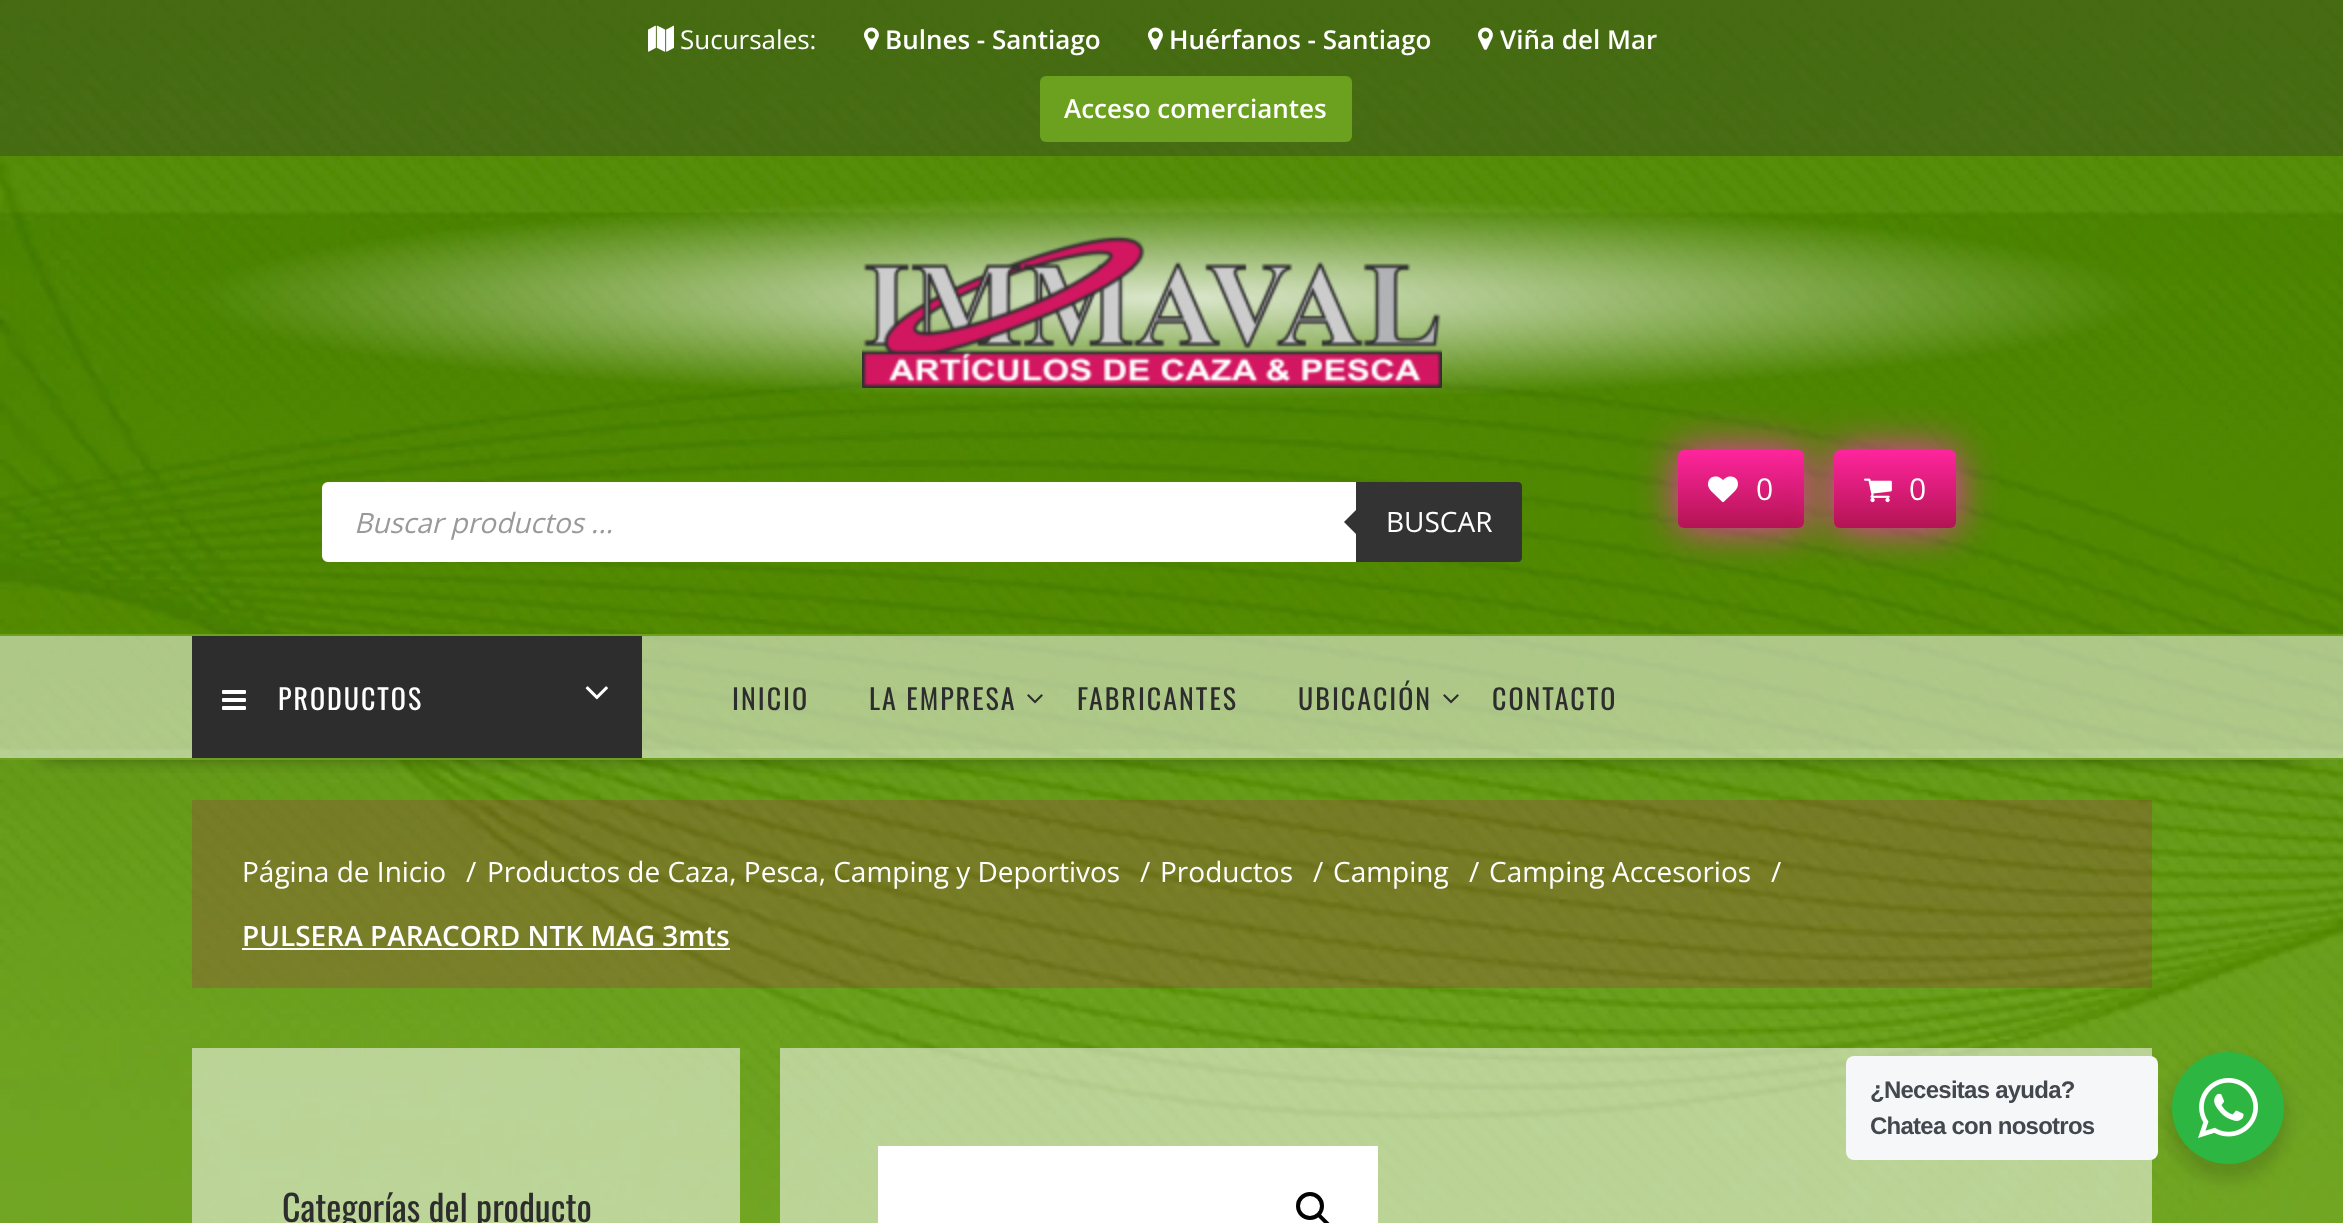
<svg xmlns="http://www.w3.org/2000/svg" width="2343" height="1223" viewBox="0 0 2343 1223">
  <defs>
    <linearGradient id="g1" gradientUnits="userSpaceOnUse" x1="1741" y1="450" x2="1741" y2="528"><stop offset="0" stop-color="#ff259d"/><stop offset="1" stop-color="#b31453"/></linearGradient>
    <linearGradient id="g2" gradientUnits="userSpaceOnUse" x1="1895" y1="450" x2="1895" y2="528"><stop offset="0" stop-color="#ff259d"/><stop offset="1" stop-color="#b31453"/></linearGradient>
    <clipPath id="clip1"><path d="M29 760h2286v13H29z"/></clipPath>
  </defs>
  <rect width="100%" height="100%" fill="#fff"/>
  <image x="0" y="0" width="2343" height="1223" href="img/1.png"/>
  <path d="M0 0h2343v156H0z" fill="#2d2d2d54"/>
  <image x="648" y="25" width="26" height="27" href="img/2.png"/>
  <image x="864" y="27" width="15" height="23" href="img/3.png"/>
  <image x="1148" y="27" width="15" height="23" href="img/4.png"/>
  <image x="1478" y="27" width="15" height="23" href="img/5.png"/>
  <rect x="1040" y="76" width="312" height="66" rx="6" fill="#6ca11f"/>
  <image x="862" y="235" width="580" height="153" href="img/6.png"/>
  <rect x="1678" y="450" width="126" height="78" rx="6" fill="#ff2cbc" filter="blur(20px)"/>
  <rect x="1678" y="450" width="126" height="78" rx="6" fill="url(#g1)"/>
  <image x="1708" y="476" width="30" height="27" href="img/7.png"/>
  <rect x="1834" y="450" width="122" height="78" rx="6" fill="#ff2cbc" filter="blur(20px)"/>
  <rect x="1834" y="450" width="122" height="78" rx="6" fill="url(#g2)"/>
  <image x="1864" y="478" width="28" height="25" href="img/8.png"/>
  <rect x="323" y="483" width="1198" height="78" rx="5" fill="#fff" stroke="#fff" stroke-width="2"/>
  <path d="M1356 482H1518C1520 482 1522 484 1522 486V558C1522 560 1520 562 1518 562H1356Z" fill="#333"/>
  <path d="M1360 506V538L1344 522Z" fill="#333"/>
  <g clip-path="url(#clip1)">
    <path d="M42 710h2260v42H42z" fill="#000000bf" filter="blur(11px)"/>
  </g>
  <path d="M0 636h2343v122H0z" fill="#ffffff87"/>
  <path d="M0 634h2343v2H0z" fill="#6ca11f"/>
  <path d="M0 758h2343v2H0z" fill="#6ca11f"/>
  <path d="M192 636h450v122H192z" fill="#2d2d2d"/>
  <image x="222" y="690" width="24" height="20" href="img/9.png"/>
  <image x="585" y="686" width="23" height="14" href="img/10.png"/>
  <image x="1027" y="694" width="16" height="10" href="img/11.png"/>
  <image x="1443" y="694" width="16" height="10" href="img/12.png"/>
  <path d="M192 800h1960v188H192z" fill="#bb005c33"/>
  <path d="M242 948h488v2H242z" fill="#fff"/>
  <path d="M192 1048h548v175H192z" fill="#ffffff87"/>
  <path d="M780 1048h1372v175H780z" fill="#ffffff87"/>
  <path d="M878 1146h500v77H878z" fill="#fff"/>
  <circle cx="1310" cy="1206" r="12" fill="none" stroke="#000" stroke-width="4"/>
  <path d="M1318.5 1214.5C1319 1214 1320.5 1214 1321 1214.5L1329.5 1223C1330.5 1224 1330.5 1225.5 1329.5 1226C1329 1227 1327.5 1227 1327 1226L1318.5 1217.5C1317.5 1217 1317.5 1215.5 1318.5 1214.5Z" fill="#000"/>
  <rect x="2168" y="1060" width="120" height="120" rx="60" fill="#00000024" filter="blur(8px)"/>
  <rect x="1846" y="1056" width="312" height="104" rx="8" fill="#f5f7f9"/>
  <circle cx="2228" cy="1108" r="56" fill="#2db742"/>
  <image x="2198" y="1078" width="60" height="60" href="img/13.png"/>
  <text x="680" y="49" font-family="Open Sans" font-size="26" fill="#fff">Sucursales:</text>
  <g font-family="Open Sans" font-size="26" font-weight="600" fill="#fff">
    <text x="885" y="49">Bulnes - Santiago</text>
    <text x="1169" y="49">Huérfanos - Santiago</text>
    <text x="1500" y="49">Viña del Mar</text>
    <text x="1064" y="118">Acceso comerciantes</text>
  </g>
  <g font-family="Open Sans" font-size="30" fill="#fff">
    <text x="1756" y="500">0</text>
    <text x="1909" y="500">0</text>
  </g>
  <text x="354" y="533" font-family="Open Sans" font-size="28" font-style="italic" fill="#999">Buscar productos ...</text>
  <text x="1386" y="532" font-family="Open Sans" font-size="28" fill="#fff">BUSCAR</text>
  <text x="278" y="710" font-family="Oswald" font-size="28" letter-spacing="2" fill="#fff">PRODUCTOS</text>
  <g font-family="Oswald" font-size="28" letter-spacing="2" fill="#2d2d2d">
    <text x="732" y="710">INICIO</text>
    <text x="869" y="710">LA EMPRESA</text>
    <text x="1077" y="710">FABRICANTES</text>
    <text x="1298" y="710">UBICACIÓN</text>
    <text x="1492" y="710">CONTACTO</text>
  </g>
  <g font-family="Open Sans" font-size="28" fill="#fff">
    <text x="242" y="882">Página de Inicio</text>
    <text x="466" y="882">/</text>
    <text x="487" y="882">Productos de Caza, Pesca, Camping y Deportivos</text>
    <text x="1140" y="882">/</text>
    <text x="1160" y="882">Productos</text>
    <text x="1313" y="882">/</text>
    <text x="1333" y="882">Camping</text>
    <text x="1469" y="882">/</text>
    <text x="1489" y="882">Camping Accesorios</text>
    <text x="1771" y="882">/</text>
  </g>
  <text x="242" y="946" font-family="Open Sans" font-size="28" font-weight="600" fill="#fff">PULSERA PARACORD NTK MAG 3mts</text>
  <text x="282" y="1222" font-family="Oswald" font-size="36" fill="#2d2d2d">Categorías del producto</text>
  <g font-family="Liberation Sans" font-size="24" font-weight="bold" letter-spacing="-0.75" fill="#43474e">
    <text x="1870" y="1098">¿Necesitas ayuda?</text>
    <text x="1870" y="1134">Chatea con nosotros</text>
  </g>
</svg>
